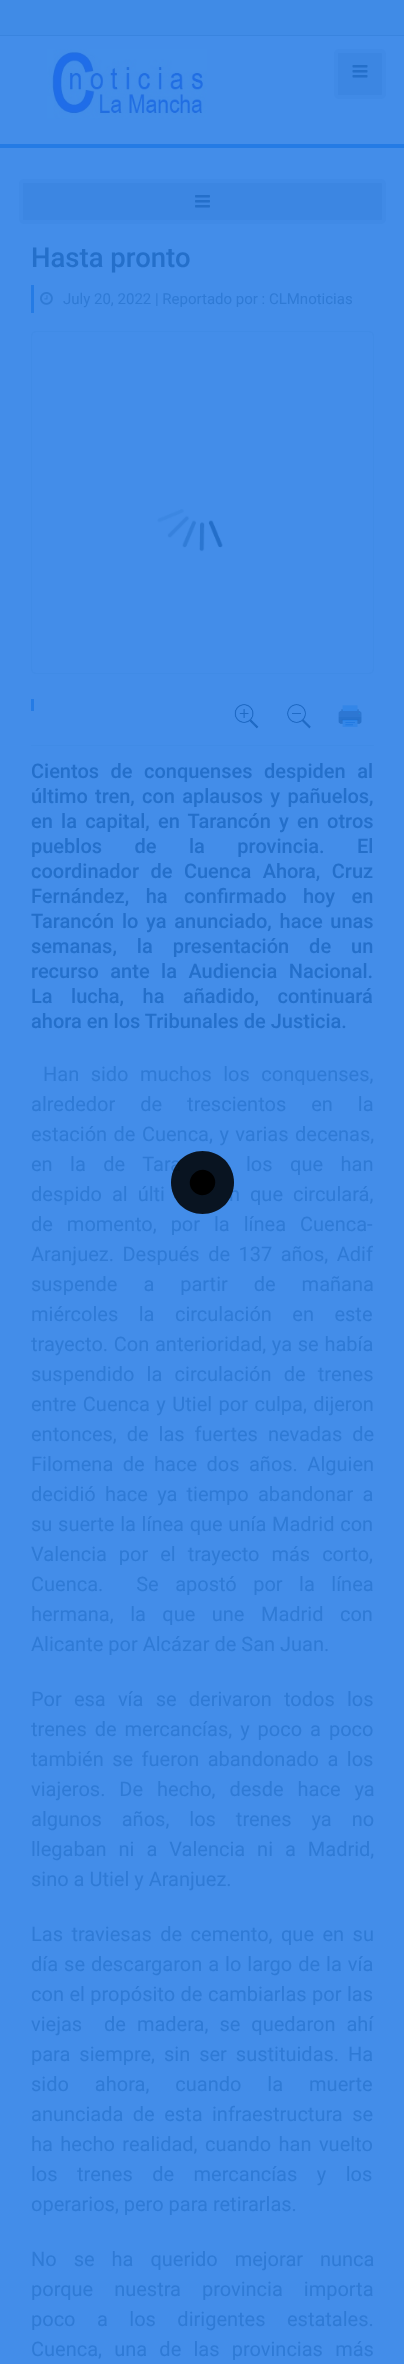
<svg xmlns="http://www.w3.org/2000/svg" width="404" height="2364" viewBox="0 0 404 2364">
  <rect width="100%" height="100%" fill="#438de9"/>
  <path d="M0 0h404v35H0z" fill="#408be6"/>
  <path d="M0 35h404v1H0z" fill="#3984df"/>
  <path d="M0 144h404v4H0z" fill="#247be5"/>
  <image x="47" y="49" width="160" height="70" href="img/1.png"/>
  <rect x="336" y="51" width="48" height="46" rx="3" fill="#3c86e2" stroke="#408ae6" stroke-width="4"/>
  <image x="352" y="65" width="16" height="13" href="img/2.png"/>
  <rect x="21" y="181" width="363" height="41" rx="3" fill="#3c86e2" stroke="#408ae6" stroke-width="4"/>
  <image x="195" y="195" width="15" height="13" href="img/3.png"/>
  <path d="M31 285h3v28H31z" fill="#247be5"/>
  <image x="40" y="292" width="13" height="13" href="img/4.png"/>
  <rect x="31.5" y="331.5" width="342" height="342" rx="4.5" fill="none" stroke="#408be6"/>
  <image x="157" y="509" width="66" height="43" href="img/5.png"/>
  <path d="M31 745h343v1H31z" fill="#408be6"/>
  <path d="M31 699h3v12H31z" fill="#247be5"/>
  <image x="234" y="704" width="25" height="25" href="img/6.png"/>
  <image x="287" y="704" width="24" height="25" href="img/7.png"/>
  <image x="338" y="705" width="24" height="22" href="img/8.png"/>
  <path d="M211.5 1173.5C223 1185.5 205.5 1203 193.5 1191.5C182 1179.5 199.5 1162 211.5 1173.5Z" fill="#000"/>
  <text x="31" y="267" font-family="Roboto" font-size="27.5" font-weight="500" fill="#246fca">Hasta pronto</text>
  <text x="63" y="304" font-family="Roboto" font-size="15" fill="#2f7ad5">July 20, 2022 | Reportado por : CLMnoticias</text>
  <g font-family="Roboto" font-size="20" font-weight="500" fill="#246fca">
    <text x="31" y="778" word-spacing="6.5">Cientos de conquenses despiden al</text>
    <text x="31" y="803" word-spacing="2.25">último tren, con aplausos y pañuelos,</text>
    <text x="31" y="828" word-spacing="3.25">en la capital, en Tarancón y en otros</text>
    <text x="31" y="853" word-spacing="27.5">pueblos de la provincia.</text>
    <text x="357" y="853">El</text>
    <text x="31" y="878" word-spacing="6.5">coordinador de Cuenca Ahora, Cruz</text>
    <text x="31" y="903" word-spacing="11.5">Fernández, ha confirmado hoy en</text>
    <text x="31" y="928" word-spacing="2.75">Tarancón lo ya anunciado, hace unas</text>
    <text x="31" y="953" word-spacing="15">semanas, la presentación de un</text>
    <text x="31" y="978" word-spacing="6.5">recurso ante la Audiencia Nacional.</text>
    <text x="31" y="1003" word-spacing="13.5">La lucha, ha añadido, continuará</text>
    <text x="31" y="1028">ahora en los Tribunales de Justicia.</text>
  </g>
  <g font-family="Roboto" font-size="20" fill="#2f7ad5">
    <text x="43" y="1081" word-spacing="6.5">Han sido muchos los conquenses,</text>
    <text x="31" y="1111" word-spacing="20">alrededor de trescientos en la</text>
    <text x="31" y="1141" word-spacing="1.5">estación de Cuenca, y varias decenas,</text>
    <text x="31" y="1171" word-spacing="12.5">en la de Tara</text>
    <text x="246" y="1171" word-spacing="12.5">los que han</text>
    <text x="31" y="1201" word-spacing="5">despido al últi</text>
    <text x="229" y="1201" word-spacing="5">n que circulará,</text>
    <text x="31" y="1231" word-spacing="9">de momento, por la línea Cuenca-</text>
    <text x="31" y="1261" word-spacing="3.5">Aranjuez. Después de 137 años, Adif</text>
    <text x="31" y="1291" word-spacing="21">suspende a partir de mañana</text>
    <text x="31" y="1321" word-spacing="15.5">miércoles la circulación en este</text>
    <text x="31" y="1351" word-spacing="0.75">trayecto. Con anterioridad, ya se había</text>
    <text x="31" y="1381" word-spacing="7.25">suspendido la circulación de trenes</text>
    <text x="31" y="1411" word-spacing="1.5">entre Cuenca y Utiel por culpa, dijeron</text>
    <text x="31" y="1441" word-spacing="5">entonces, de las fuertes nevadas de</text>
    <text x="31" y="1471" word-spacing="4.5">Filomena de hace dos años. Alguien</text>
    <text x="31" y="1501" word-spacing="4.25">decidió hace ya tiempo abandonar a</text>
    <text x="31" y="1531" word-spacing="0.75">su suerte la línea que unía Madrid con</text>
    <text x="31" y="1561" word-spacing="7">Valencia por el trayecto más corto,</text>
    <text x="31" y="1591" word-spacing="11.5" xml:space="preserve">Cuenca.  Se apostó por la línea</text>
    <text x="31" y="1621" word-spacing="11.5">hermana, la que une Madrid con</text>
    <text x="31" y="1651">Alicante por Alcázar de San Juan.</text>
    <text x="31" y="1706" word-spacing="7.25">Por esa vía se derivaron todos los</text>
    <text x="31" y="1736" word-spacing="3">trenes de mercancías, y poco a poco</text>
    <text x="31" y="1766" word-spacing="3.5">también se fueron abandonado a los</text>
    <text x="31" y="1796" word-spacing="9">viajeros. De hecho, desde hace ya</text>
    <text x="31" y="1826" word-spacing="15">algunos años, los trenes ya no</text>
    <text x="31" y="1856" word-spacing="7">llegaban ni a Valencia ni a Madrid,</text>
    <text x="31" y="1886">sino a Utiel y Aranjuez.</text>
    <text x="31" y="1941" word-spacing="3.5">Las traviesas de cemento, que en su</text>
    <text x="31" y="1971" word-spacing="1">día se descargaron a lo largo de la vía</text>
    <text x="31" y="2001" word-spacing="0.5">con el propósito de cambiarlas por las</text>
    <text x="31" y="2031" word-spacing="6" xml:space="preserve">viejas  de madera, se quedaron ahí</text>
    <text x="31" y="2061" word-spacing="4">para siempre, sin ser sustituidas. Ha</text>
    <text x="31" y="2091" word-spacing="21">sido ahora, cuando la muerte</text>
    <text x="31" y="2121" word-spacing="4.5">anunciada de esta infraestructura se</text>
    <text x="31" y="2151" word-spacing="2.5">ha hecho realidad, cuando han vuelto</text>
    <text x="31" y="2181" word-spacing="14.5">los trenes de mercancías y los</text>
    <text x="31" y="2211">operarios, pero para retirarlas.</text>
    <text x="31" y="2266" word-spacing="12">No se ha querido mejorar nunca</text>
    <text x="31" y="2296" word-spacing="16">porque nuestra provincia importa</text>
    <text x="31" y="2326" word-spacing="16.5">poco a los dirigentes estatales.</text>
    <text x="31" y="2356" word-spacing="7.25">Cuenca, una de las provincias más</text>
  </g>
  <path d="M225 1160C237 1173 237 1192 225 1205C212 1217 193 1217 180 1205C168 1192 168 1173 180 1160C193 1148 212 1148 225 1160Z" fill="#000000db"/>
</svg>
